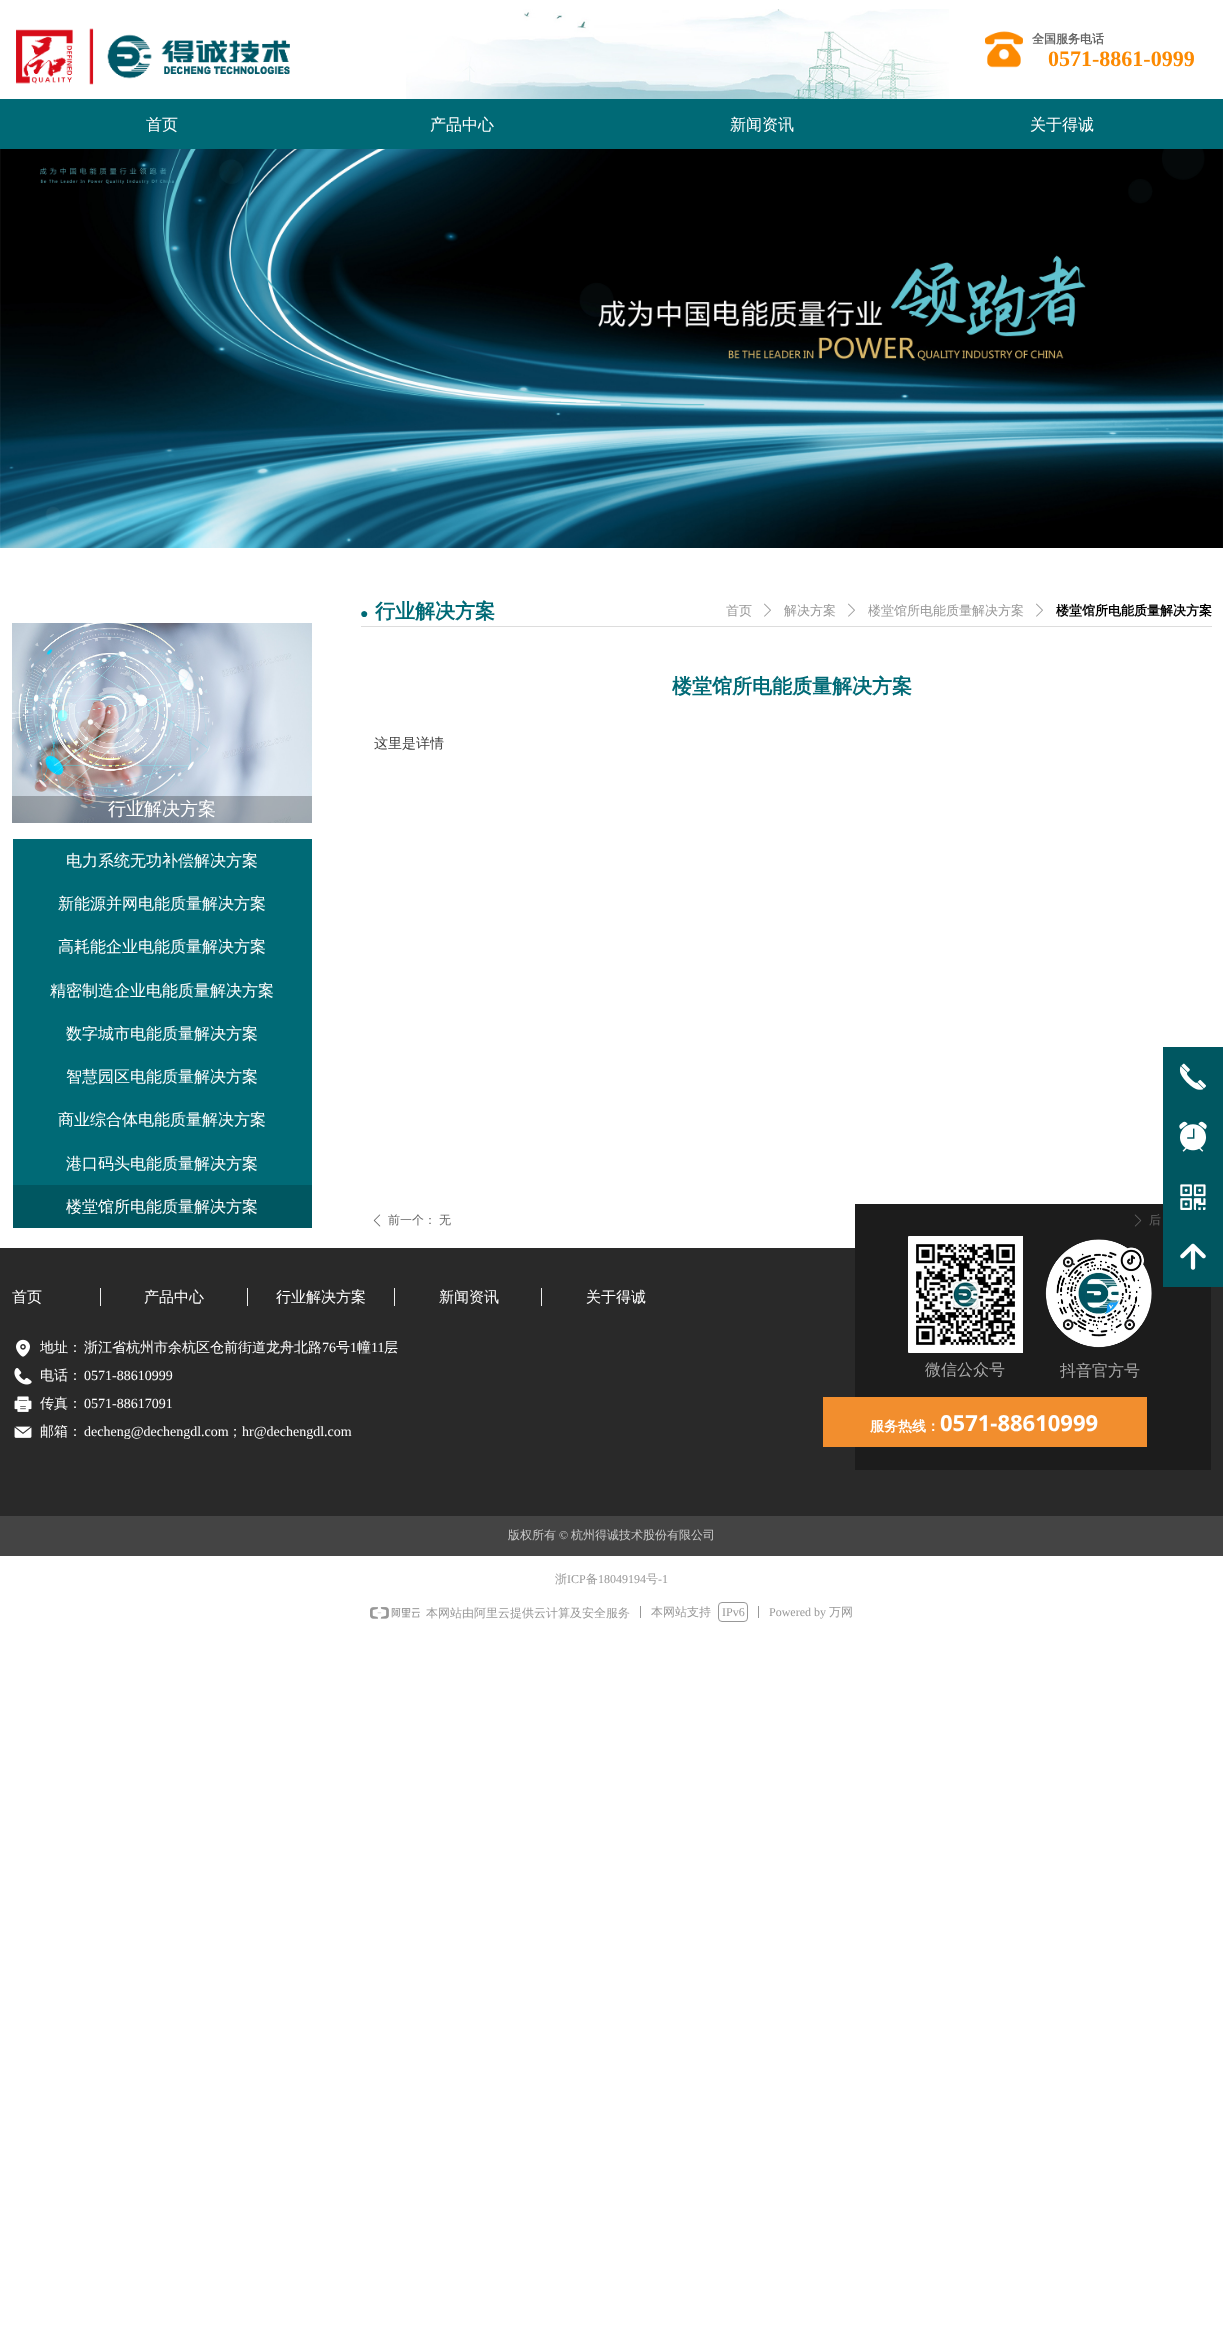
<svg xmlns="http://www.w3.org/2000/svg" width="1223" height="2334" viewBox="0 0 1223 2334">
  <rect width="100%" height="100%" fill="#fff"/>
  <image x="16" y="28" width="274" height="57" href="img/1.png"/>
  <image x="406" y="9" width="543" height="90" href="img/2.png"/>
  <image x="985" y="31" width="38" height="37" href="img/3.png"/>
  <path d="M0 99h1223v50H0z" fill="#006a76"/>
  <image x="0" y="149" width="1223" height="399" href="img/4.png"/>
  <image x="764" y="603" width="7" height="14" href="img/5.png"/>
  <image x="848" y="603" width="7" height="14" href="img/5.png"/>
  <image x="1036" y="603" width="7" height="14" href="img/5.png"/>
  <path d="M361 626h851v1H361z" fill="#ddd"/>
  <image x="12" y="623" width="300" height="200" href="img/6.png"/>
  <path d="M12 796h300v27H12z" fill="#00000040"/>
  <path d="M13 839h299v346H13z" fill="#006a76"/>
  <path d="M13 1185h299v43H13z" fill="#005761"/>
  <image x="373" y="1214" width="8" height="13" href="img/7.png"/>
  <path d="M0 1248h1223v268H0z" fill="#292929"/>
  <path d="M855 1204h356v266H855z" fill="#1c1c1c"/>
  <image x="1134" y="1214" width="8" height="13" href="img/8.png"/>
  <path d="M100 1288h1v18H100z" fill="#eee"/>
  <path d="M247 1288h1v18H247z" fill="#eee"/>
  <path d="M394 1288h1v18H394z" fill="#eee"/>
  <path d="M541 1288h1v18H541z" fill="#eee"/>
  <image x="16" y="1339" width="14" height="18" href="img/9.png"/>
  <image x="14" y="1368" width="18" height="17" href="img/10.png"/>
  <image x="14" y="1396" width="18" height="16" href="img/11.png"/>
  <image x="14" y="1426" width="18" height="12" href="img/12.png"/>
  <image x="908" y="1236" width="115" height="117" href="img/13.png"/>
  <image x="1045" y="1239" width="107" height="109" href="img/14.png"/>
  <path d="M823 1397h324v50H823z" fill="#f28e2e"/>
  <path d="M0 1516h1223v40H0z" fill="#444"/>
  <path d="M1163 1047h60v240H1163z" fill="#005761"/>
  <image x="1179" y="1063" width="27" height="27" href="img/15.png"/>
  <image x="1179" y="1121" width="28" height="31" href="img/16.png"/>
  <image x="1180" y="1184" width="26" height="26" href="img/17.png"/>
  <image x="1180" y="1243" width="26" height="27" href="img/18.png"/>
  <image x="370" y="1607" width="50" height="12" href="img/19.png"/>
  <path d="M640 1606h1v12H640z" fill="#989898"/>
  <rect x="718.5" y="1602.5" width="29" height="19" rx="3.5" fill="none" stroke="#989898"/>
  <path d="M758 1606h1v12H758z" fill="#989898"/>
  <text x="1032" y="43" font-family="WenQuanYi Zen Hei" font-size="12" font-weight="bold" fill="#666">全国服务电话</text>
  <text x="1048" y="66" font-family="Liberation Serif" font-size="22" font-weight="bold" fill="#fc8a02">0571-8861-0999</text>
  <g font-family="WenQuanYi Zen Hei" font-size="16" font-weight="500" fill="#fff">
    <text x="146" y="130">首页</text>
    <text x="430" y="130">产品中心</text>
    <text x="730" y="130">新闻资讯</text>
    <text x="1030" y="130">关于得诚</text>
  </g>
  <text x="360" y="618" font-family="Liberation Sans" font-size="14" fill="#006a76">●</text>
  <text x="375" y="618" font-family="WenQuanYi Zen Hei" font-size="20" font-weight="bold" fill="#006a76">行业解决方案</text>
  <g font-family="WenQuanYi Zen Hei" font-size="13" font-weight="500" fill="#989898">
    <text x="726" y="615">首页</text>
    <text x="784" y="615">解决方案</text>
    <text x="868" y="615">楼堂馆所电能质量解决方案</text>
  </g>
  <text x="1056" y="615" font-family="WenQuanYi Zen Hei" font-size="13" font-weight="bold" fill="#000">楼堂馆所电能质量解决方案</text>
  <text x="672" y="693" font-family="WenQuanYi Zen Hei" font-size="20" font-weight="bold" fill="#006a76">楼堂馆所电能质量解决方案</text>
  <text x="374" y="748" font-family="WenQuanYi Zen Hei" font-size="14" font-weight="500" fill="#404040">这里是详情</text>
  <text x="108" y="815" font-family="WenQuanYi Zen Hei" font-size="18" font-weight="500" fill="#fff">行业解决方案</text>
  <g font-family="WenQuanYi Zen Hei" font-size="16" font-weight="500" fill="#fff">
    <text x="66" y="866">电力系统无功补偿解决方案</text>
    <text x="58" y="909">新能源并网电能质量解决方案</text>
    <text x="58" y="952">高耗能企业电能质量解决方案</text>
    <text x="50" y="996">精密制造企业电能质量解决方案</text>
    <text x="66" y="1039">数字城市电能质量解决方案</text>
    <text x="66" y="1082">智慧园区电能质量解决方案</text>
    <text x="58" y="1125">商业综合体电能质量解决方案</text>
    <text x="66" y="1169">港口码头电能质量解决方案</text>
    <text x="66" y="1212">楼堂馆所电能质量解决方案</text>
  </g>
  <g font-family="WenQuanYi Zen Hei" font-size="12" font-weight="500" fill="#666">
    <text x="388" y="1224">前一个：</text>
    <text x="439" y="1224">无</text>
    <text x="1149" y="1224">后</text>
  </g>
  <g font-family="WenQuanYi Zen Hei" font-size="15" font-weight="500" fill="#fff">
    <text x="12" y="1302">首页</text>
    <text x="144" y="1302">产品中心</text>
    <text x="276" y="1302">行业解决方案</text>
    <text x="439" y="1302">新闻资讯</text>
    <text x="586" y="1302">关于得诚</text>
  </g>
  <g font-family="WenQuanYi Zen Hei" font-size="14" font-weight="500" fill="#fff">
    <text x="40" y="1352">地址：</text>
    <text x="84" y="1352">浙江省杭州市余杭区仓前街道龙舟北路</text>
  </g>
  <text x="322" y="1352" font-family="Liberation Serif" font-size="14" fill="#fff">76</text>
  <text x="336" y="1352" font-family="WenQuanYi Zen Hei" font-size="14" font-weight="500" fill="#fff">号</text>
  <text x="350" y="1352" font-family="Liberation Serif" font-size="14" fill="#fff">1</text>
  <text x="357" y="1352" font-family="WenQuanYi Zen Hei" font-size="14" font-weight="500" fill="#fff">幢</text>
  <text x="371" y="1352" font-family="Liberation Serif" font-size="14" fill="#fff">11</text>
  <g font-family="WenQuanYi Zen Hei" font-size="14" font-weight="500" fill="#fff">
    <text x="384" y="1352">层</text>
    <text x="40" y="1380">电话：</text>
  </g>
  <text x="84" y="1380" font-family="Liberation Serif" font-size="14" fill="#fff">0571-88610999</text>
  <text x="40" y="1408" font-family="WenQuanYi Zen Hei" font-size="14" font-weight="500" fill="#fff">传真：</text>
  <text x="84" y="1408" font-family="Liberation Serif" font-size="14" fill="#fff">0571-88617091</text>
  <text x="40" y="1436" font-family="WenQuanYi Zen Hei" font-size="14" font-weight="500" fill="#fff">邮箱：</text>
  <text x="84" y="1436" font-family="Liberation Serif" font-size="14" fill="#fff">decheng@dechengdl.com</text>
  <text x="228" y="1436" font-family="WenQuanYi Zen Hei" font-size="14" font-weight="500" fill="#fff">；</text>
  <text x="242" y="1436" font-family="Liberation Serif" font-size="14" fill="#fff">hr@dechengdl.com</text>
  <g font-family="WenQuanYi Zen Hei" font-size="16" font-weight="500" fill="#aaa">
    <text x="925" y="1375">微信公众号</text>
    <text x="1060" y="1376">抖音官方号</text>
  </g>
  <text x="870" y="1431" font-family="WenQuanYi Zen Hei" font-size="14" font-weight="bold" fill="#fff">服务热线：</text>
  <text x="940" y="1431" font-family="Noto Sans" font-size="22" font-weight="bold" fill="#fff">0571-88610999</text>
  <text x="508" y="1539" font-family="WenQuanYi Zen Hei" font-size="12" font-weight="500" fill="#ccc">版权所有</text>
  <text x="559" y="1539" font-family="Liberation Serif" font-size="12" fill="#ccc">©</text>
  <text x="571" y="1539" font-family="WenQuanYi Zen Hei" font-size="12" font-weight="500" fill="#ccc">杭州得诚技术股份有限公司</text>
  <text x="555" y="1583" font-family="WenQuanYi Zen Hei" font-size="12" font-weight="500" fill="#989898">浙</text>
  <text x="567" y="1583" font-family="Liberation Serif" font-size="12" fill="#989898">ICP</text>
  <text x="586" y="1583" font-family="WenQuanYi Zen Hei" font-size="12" font-weight="500" fill="#989898">备</text>
  <text x="598" y="1583" font-family="Liberation Serif" font-size="12" fill="#989898">18049194</text>
  <text x="646" y="1583" font-family="WenQuanYi Zen Hei" font-size="12" font-weight="500" fill="#989898">号</text>
  <text x="658" y="1583" font-family="Liberation Serif" font-size="12" fill="#989898">-1</text>
  <g font-family="WenQuanYi Zen Hei" font-size="12" font-weight="500" fill="#989898">
    <text x="426" y="1617">本网站由阿里云提供云计算及安全服务</text>
    <text x="651" y="1616">本网站支持</text>
  </g>
  <g font-family="Liberation Serif" font-size="12" fill="#989898">
    <text x="722" y="1616">IPv6</text>
    <text x="769" y="1616">Powered by</text>
  </g>
  <text x="829" y="1616" font-family="WenQuanYi Zen Hei" font-size="12" font-weight="500" fill="#989898">万网</text>
</svg>
